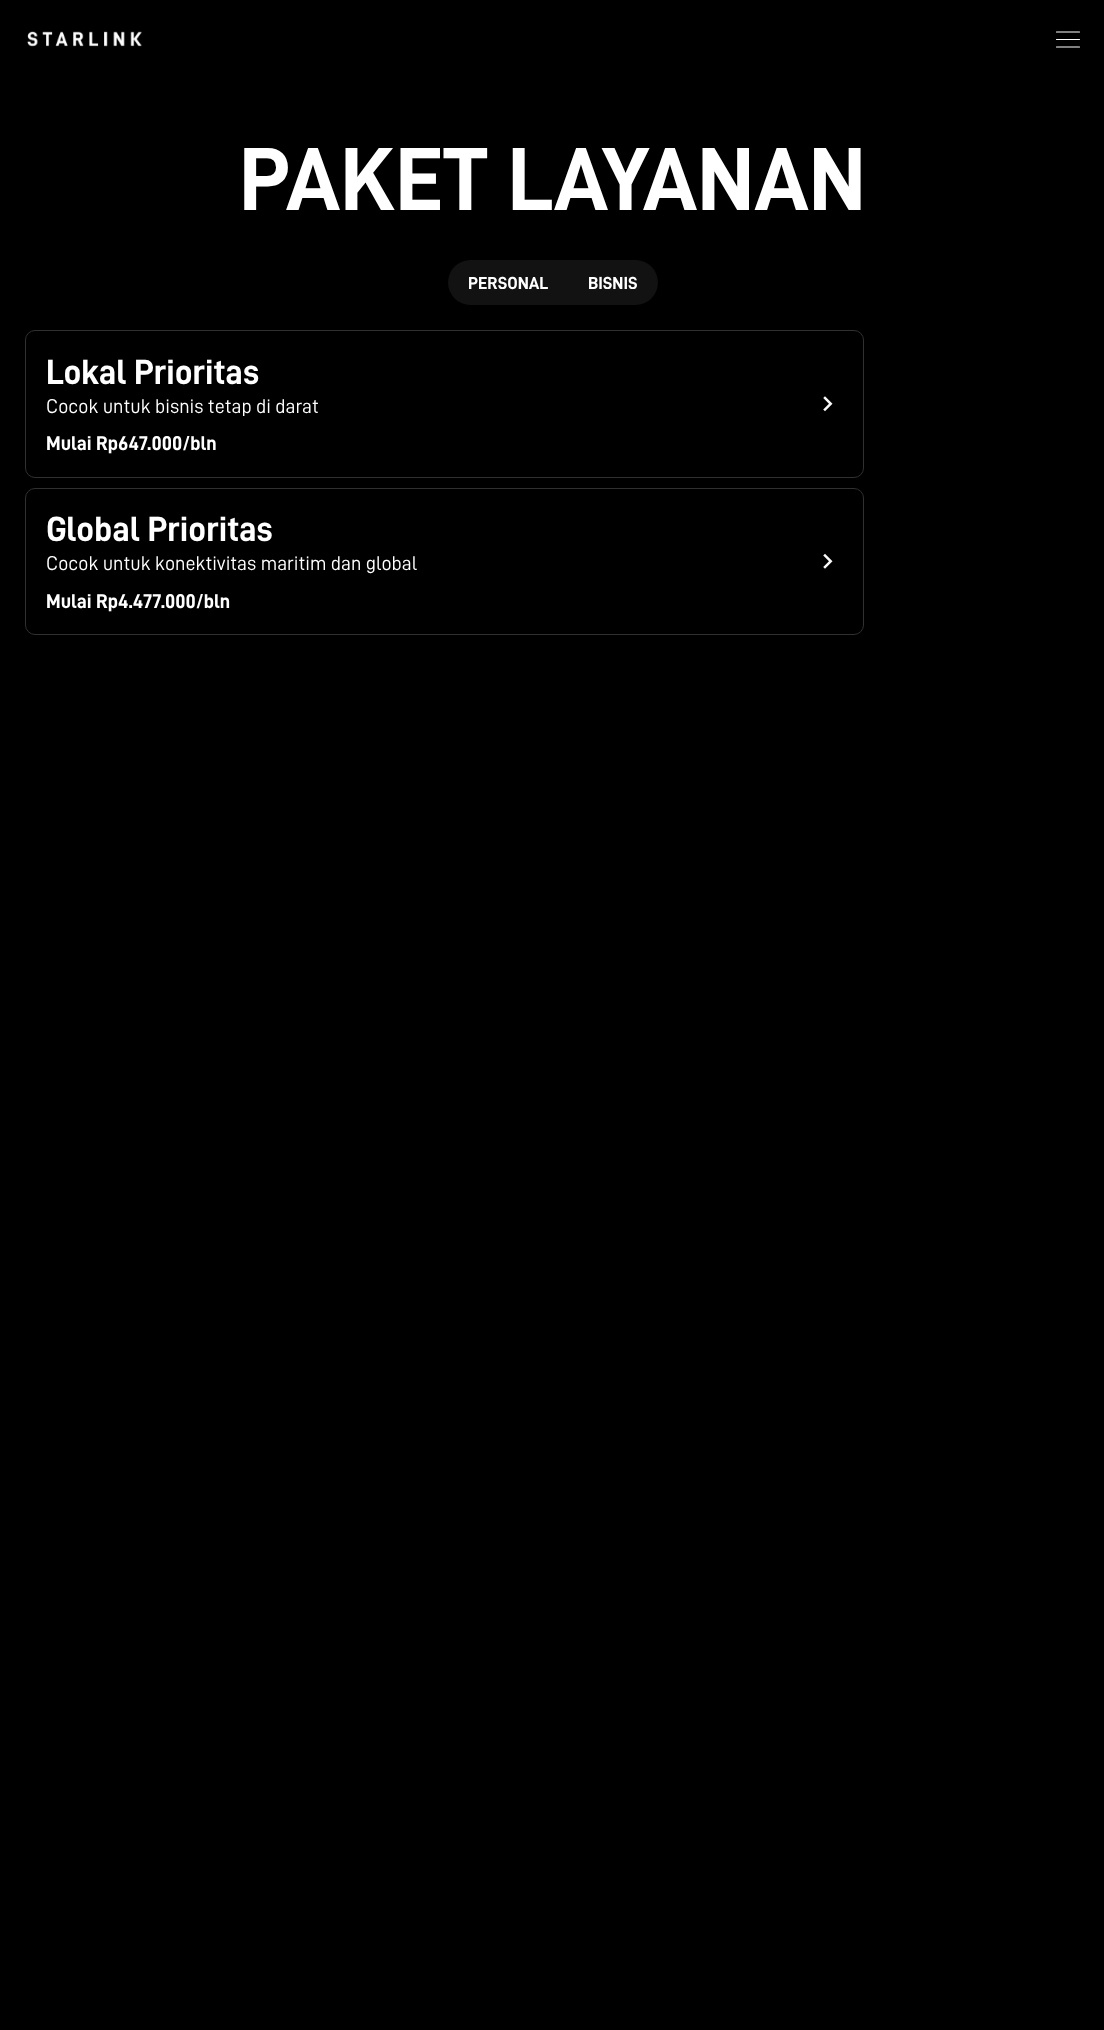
<svg xmlns="http://www.w3.org/2000/svg" width="1104" height="2030" viewBox="0 0 1104 2030">
  <rect width="100%" height="100%" fill="#000"/>
  <image x="27" y="31" width="115" height="16" href="img/1.png"/>
  <path d="M1056.5 32H1079.5M1056.5 39.5H1079.5M1056.5 47H1079.5" fill="none" stroke="#fff" stroke-width="1.1" stroke-linecap="round"/>
  <rect x="448" y="260" width="210" height="45" rx="22.5" fill="#121212"/>
  <rect x="25.5" y="330.5" width="838" height="147" rx="9.5" fill="none" stroke="#303030"/>
  <image x="823" y="396" width="10" height="16" href="img/2.png"/>
  <rect x="25.5" y="488.5" width="838" height="146" rx="9.5" fill="none" stroke="#303030"/>
  <image x="823" y="553" width="10" height="16" href="img/3.png"/>
  <text x="239" y="210" font-family="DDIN" font-size="90" font-weight="bold" fill="#fff">PAKET LAYANAN</text>
  <g font-family="DDIN" font-size="17.5" font-weight="bold" fill="#fff">
    <text x="468" y="289">PERSONAL</text>
    <text x="588" y="289">BISNIS</text>
  </g>
  <text x="46" y="384" font-family="DDIN" font-size="35" font-weight="bold" fill="#fff">Lokal Prioritas</text>
  <text x="46" y="413" font-family="DDIN" font-size="20" fill="#fff">Cocok untuk bisnis tetap di darat</text>
  <text x="46" y="450" font-family="DDIN" font-size="20" font-weight="bold" fill="#fff">Mulai Rp647.000/bln</text>
  <text x="46" y="541" font-family="DDIN" font-size="35" font-weight="bold" fill="#fff">Global Prioritas</text>
  <text x="46" y="570" font-family="DDIN" font-size="20" fill="#fff">Cocok untuk konektivitas maritim dan global</text>
  <text x="46" y="608" font-family="DDIN" font-size="20" font-weight="bold" fill="#fff">Mulai Rp4.477.000/bln</text>
</svg>
